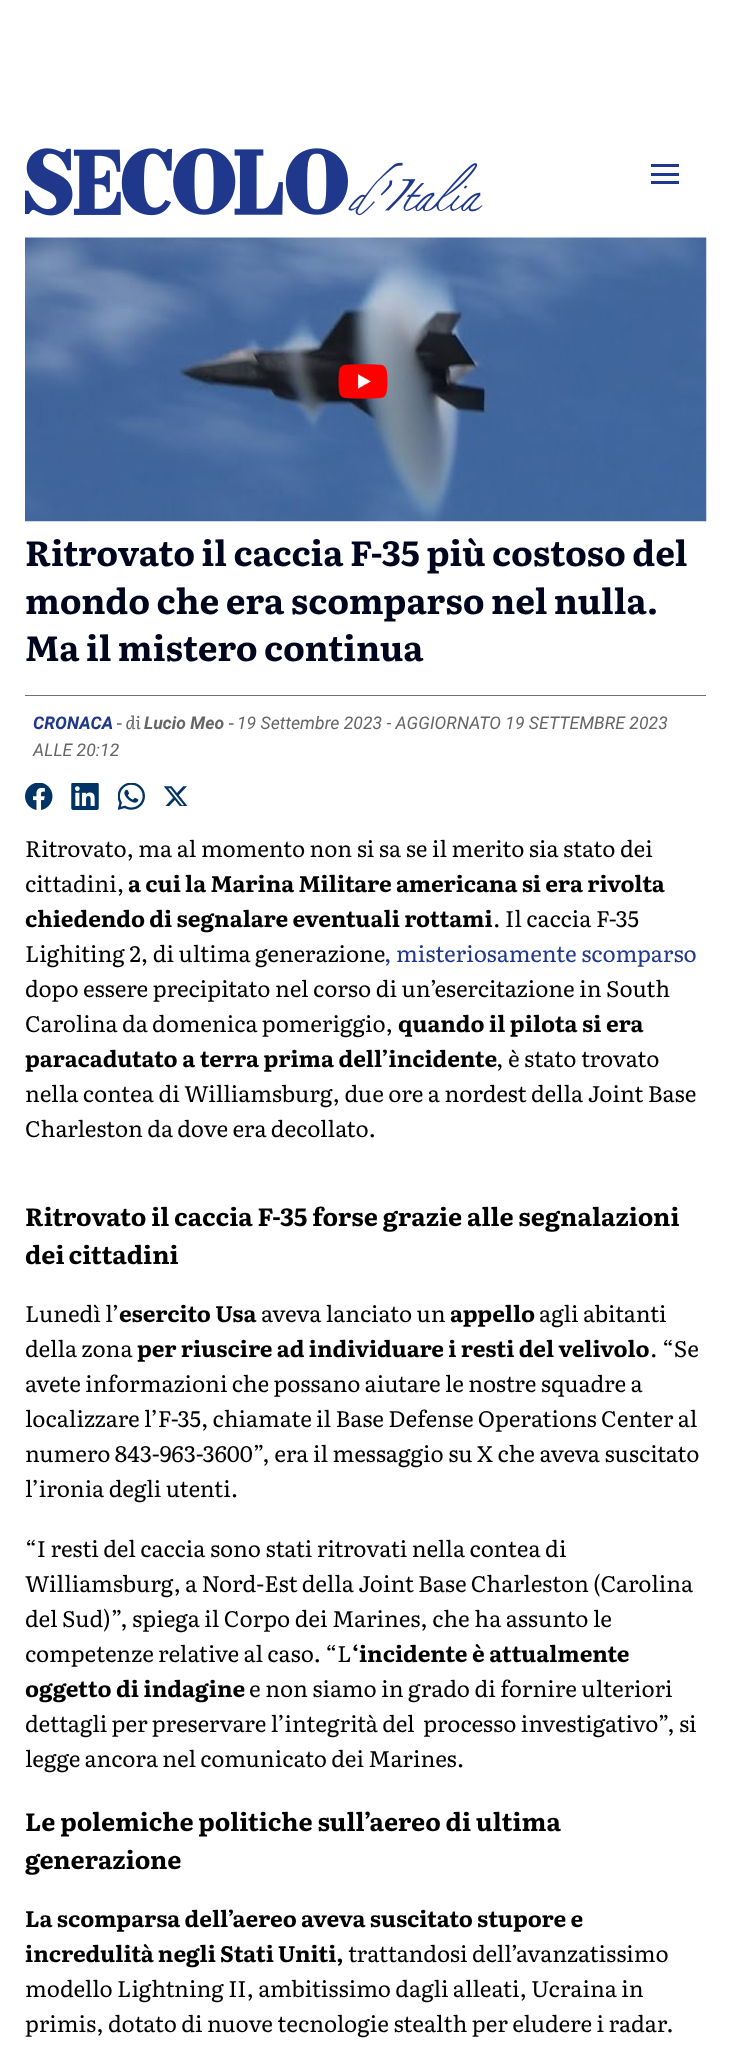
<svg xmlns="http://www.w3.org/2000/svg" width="731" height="2060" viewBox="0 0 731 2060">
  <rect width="100%" height="100%" fill="#fff"/>
  <image x="25" y="148" width="458" height="68" href="img/1.png"/>
  <path d="M651 164h28v3H651z" fill="#1f388c"/>
  <path d="M651 173h28v3H651z" fill="#1f388c"/>
  <path d="M651 181h28v3H651z" fill="#1f388c"/>
  <image x="25" y="237" width="682" height="285" href="img/2.png"/>
  <path d="M25 695h681v1H25z" fill="#707070"/>
  <image x="25" y="783" width="28" height="27" href="img/3.png"/>
  <image x="71" y="783" width="28" height="27" href="img/4.png"/>
  <image x="118" y="783" width="27" height="27" href="img/5.png"/>
  <image x="164" y="786" width="24" height="20" href="img/6.png"/>
  <g font-family="Literata" font-size="35" font-weight="bold" fill="#00061e">
    <text x="25" y="566" word-spacing="-0.5">Ritrovato il caccia F-35 più costoso del</text>
    <text x="25" y="614" word-spacing="-0.5">mondo che era scomparso nel nulla.</text>
    <text x="25" y="661" word-spacing="-0.5">Ma il mistero continua</text>
  </g>
  <text x="33" y="729" font-family="Roboto" font-size="17.5" font-weight="bold" font-style="italic" fill="#1f388c">CRONACA</text>
  <text x="116" y="729" font-family="Literata" font-size="17.5" font-style="italic" fill="#666">- di</text>
  <text x="144" y="729" font-family="Roboto" font-size="17.5" font-weight="bold" font-style="italic" fill="#666">Lucio Meo</text>
  <text x="228" y="729" font-family="Literata" font-size="17.5" font-style="italic" fill="#666">-</text>
  <g font-family="Roboto" font-size="17.5" font-style="italic" fill="#666">
    <text x="237" y="729">19 Settembre 2023 - AGGIORNATO 19 SETTEMBRE 2023</text>
    <text x="33" y="756">ALLE 20:12</text>
  </g>
  <g font-family="Literata" font-size="22.5" fill="#000">
    <text x="25" y="857">Ritrovato, ma al momento non si sa se il merito sia stato dei</text>
    <text x="25" y="892">cittadini,</text>
  </g>
  <g font-family="Literata" font-size="22.5" font-weight="bold" fill="#000">
    <text x="128" y="892" word-spacing="-0.25">a cui la Marina Militare americana si era rivolta</text>
    <text x="25" y="927" word-spacing="-0.25">chiedendo di segnalare eventuali rottami</text>
  </g>
  <g font-family="Literata" font-size="22.5" fill="#000">
    <text x="493" y="927">. Il caccia F-35</text>
    <text x="25" y="962">Lighiting 2, di ultima generazione</text>
  </g>
  <text x="384" y="962" font-family="Literata" font-size="22.5" fill="#1f388c">, misteriosamente scomparso</text>
  <g font-family="Literata" font-size="22.5" fill="#000">
    <text x="25" y="997">dopo essere precipitato nel corso di un’esercitazione in South</text>
    <text x="25" y="1032" word-spacing="-0.25">Carolina da domenica pomeriggio,</text>
  </g>
  <g font-family="Literata" font-size="22.5" font-weight="bold" fill="#000">
    <text x="398" y="1032">quando il pilota si era</text>
    <text x="25" y="1067">paracadutato a terra prima dell’incidente</text>
  </g>
  <g font-family="Literata" font-size="22.5" fill="#000">
    <text x="496" y="1067">, è stato trovato</text>
    <text x="25" y="1102">nella contea di Williamsburg, due ore a nordest della Joint Base</text>
    <text x="25" y="1137" word-spacing="-0.25">Charleston da dove era decollato.</text>
  </g>
  <g font-family="Literata" font-size="25" font-weight="bold" fill="#000">
    <text x="25" y="1226" word-spacing="-0.25">Ritrovato il caccia F-35 forse grazie alle segnalazioni</text>
    <text x="25" y="1264" word-spacing="-1">dei cittadini</text>
  </g>
  <text x="25" y="1322" font-family="Literata" font-size="22.5" fill="#000">Lunedì l’</text>
  <text x="119" y="1322" font-family="Literata" font-size="22.5" font-weight="bold" fill="#000">esercito Usa</text>
  <text x="261" y="1322" word-spacing="-0.25" font-family="Literata" font-size="22.5" fill="#000">aveva lanciato un</text>
  <text x="450" y="1322" font-family="Literata" font-size="22.5" font-weight="bold" fill="#000">appello</text>
  <g font-family="Literata" font-size="22.5" fill="#000">
    <text x="539" y="1322">agli abitanti</text>
    <text x="25" y="1357">della zona</text>
  </g>
  <text x="137" y="1357" word-spacing="-0.25" font-family="Literata" font-size="22.5" font-weight="bold" fill="#000">per riuscire ad individuare i resti del velivolo</text>
  <g font-family="Literata" font-size="22.5" fill="#000">
    <text x="650" y="1357">. “Se</text>
    <text x="25" y="1392" word-spacing="-0.25">avete informazioni che possano aiutare le nostre squadre a</text>
    <text x="25" y="1427" word-spacing="-0.25">localizzare l’F-35, chiamate il Base Defense Operations Center al</text>
    <text x="25" y="1462">numero 843-963-3600”, era il messaggio su X che aveva suscitato</text>
    <text x="25" y="1497">l’ironia degli utenti.</text>
    <text x="25" y="1557">“I resti del caccia sono stati ritrovati nella contea di</text>
    <text x="25" y="1592" word-spacing="-0.25">Williamsburg, a Nord-Est della Joint Base Charleston (Carolina</text>
    <text x="25" y="1627">del Sud)”, spiega il Corpo dei Marines, che ha assunto le</text>
    <text x="25" y="1662" word-spacing="-0.25">competenze relative al caso. “L</text>
  </g>
  <g font-family="Literata" font-size="22.5" font-weight="bold" fill="#000">
    <text x="352" y="1662">‘incidente è attualmente</text>
    <text x="25" y="1697">oggetto di indagine</text>
  </g>
  <g font-family="Literata" font-size="22.5" fill="#000">
    <text x="249" y="1697">e non siamo in grado di fornire ulteriori</text>
    <text x="25" y="1732" word-spacing="-0.25" xml:space="preserve">dettagli per preservare l’integrità del  processo investigativo”, si</text>
    <text x="25" y="1767" word-spacing="-0.25">legge ancora nel comunicato dei Marines.</text>
  </g>
  <g font-family="Literata" font-size="25" font-weight="bold" fill="#000">
    <text x="25" y="1831" word-spacing="-0.25">Le polemiche politiche sull’aereo di ultima</text>
    <text x="25" y="1869">generazione</text>
  </g>
  <g font-family="Literata" font-size="22.5" font-weight="bold" fill="#000">
    <text x="25" y="1927" word-spacing="-0.25">La scomparsa dell’aereo aveva suscitato stupore e</text>
    <text x="25" y="1962" word-spacing="-0.5">incredulità negli Stati Uniti,</text>
  </g>
  <g font-family="Literata" font-size="22.5" fill="#000">
    <text x="348" y="1962">trattandosi dell’avanzatissimo</text>
    <text x="25" y="1997" word-spacing="-0.25">modello Lightning II, ambitissimo dagli alleati, Ucraina in</text>
    <text x="25" y="2032" word-spacing="-0.1">primis, dotato di nuove tecnologie stealth per eludere i radar.</text>
  </g>
</svg>
